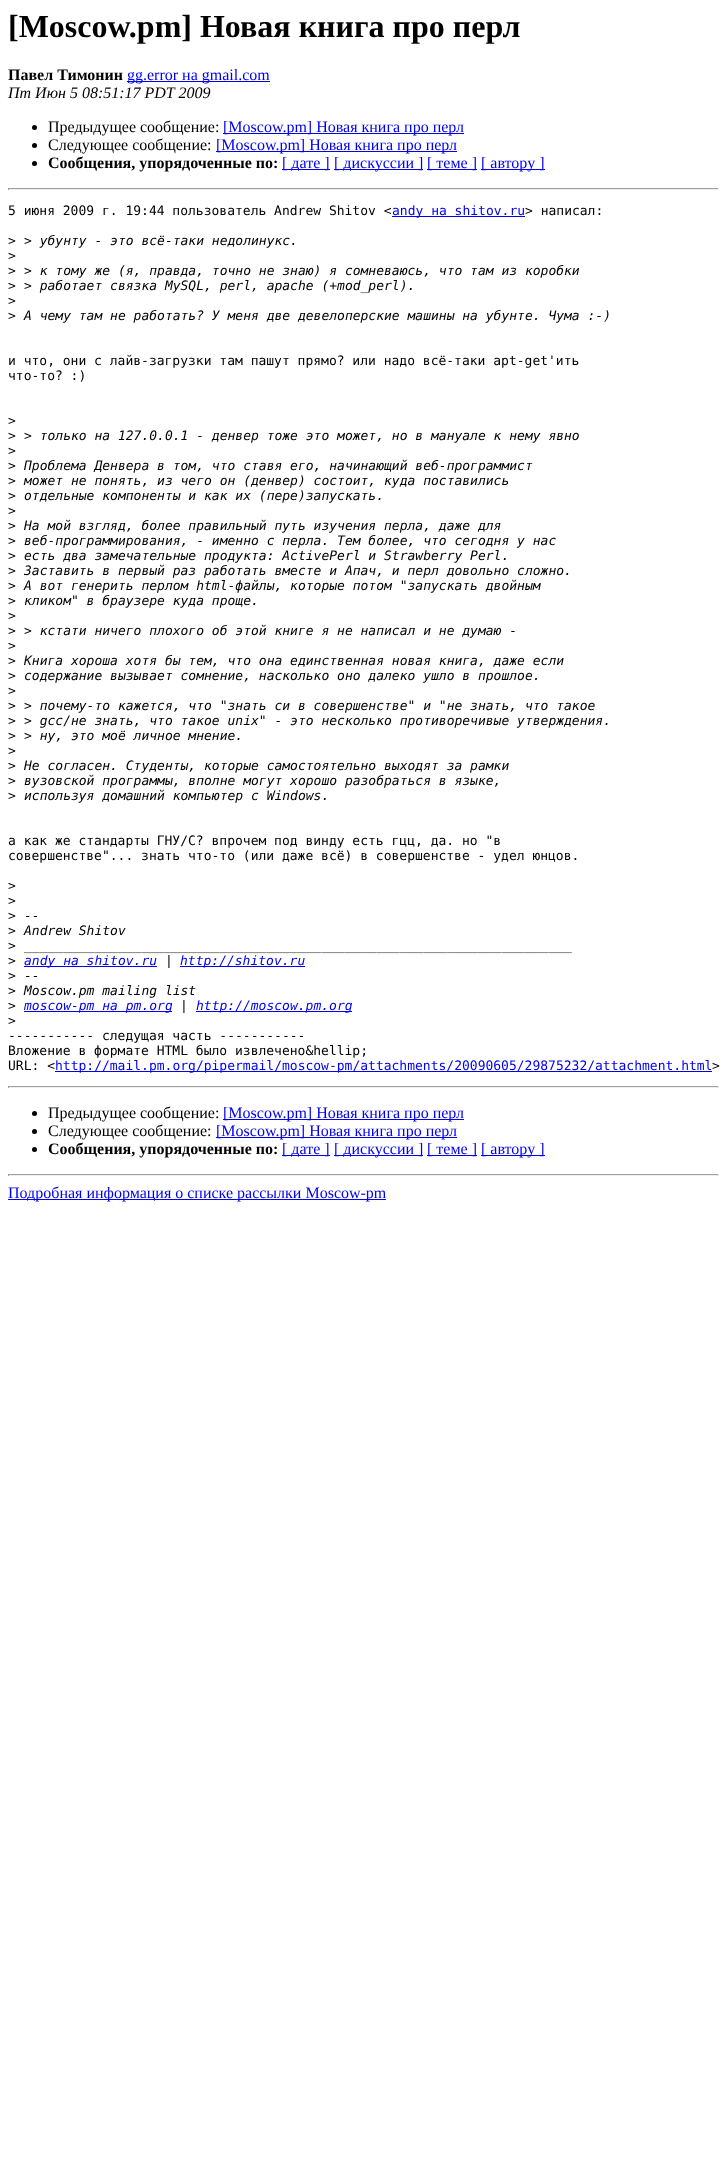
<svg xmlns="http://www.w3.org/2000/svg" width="727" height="2160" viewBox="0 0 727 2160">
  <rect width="100%" height="100%" fill="#fff"/>
  <path d="M127 81h143v1H127z" fill="#00e"/>
  <circle cx="34.5" cy="127.5" r="2.5" fill="#000"/>
  <path d="M223 133h241v1H223z" fill="#00e"/>
  <circle cx="34.5" cy="145.5" r="2.5" fill="#000"/>
  <path d="M216 151h241v1H216z" fill="#00e"/>
  <circle cx="34.5" cy="163.5" r="2.5" fill="#000"/>
  <path d="M282 169h48v1H282z" fill="#00e"/>
  <path d="M334 169h89v1H334z" fill="#00e"/>
  <path d="M427 169h50v1H427z" fill="#00e"/>
  <path d="M481 169h64v1H481z" fill="#00e"/>
  <path d="M8 188h711v1H8z" fill="#9f9f9f"/>
  <path d="M718 188h1v2H718z" fill="#eee"/>
  <path d="M8 189h711v1H8z" fill="#eee"/>
  <path d="M8 188h1v2H8z" fill="#9f9f9f"/>
  <path d="M392 216h133v1H392z" fill="#00e"/>
  <path d="M24 966h133v1H24z" fill="#00e"/>
  <path d="M180 966h125v1H180z" fill="#00e"/>
  <path d="M24 1011h148v1H24z" fill="#00e"/>
  <path d="M196 1011h156v1H196z" fill="#00e"/>
  <path d="M55 1071h657v1H55z" fill="#00e"/>
  <path d="M8 1086h711v1H8z" fill="#9f9f9f"/>
  <path d="M718 1086h1v2H718z" fill="#eee"/>
  <path d="M8 1087h711v1H8z" fill="#eee"/>
  <path d="M8 1086h1v2H8z" fill="#9f9f9f"/>
  <circle cx="34.5" cy="1113.5" r="2.5" fill="#000"/>
  <path d="M223 1119h241v1H223z" fill="#00e"/>
  <circle cx="34.5" cy="1131.5" r="2.5" fill="#000"/>
  <path d="M216 1137h241v1H216z" fill="#00e"/>
  <circle cx="34.5" cy="1149.5" r="2.5" fill="#000"/>
  <path d="M282 1155h48v1H282z" fill="#00e"/>
  <path d="M334 1155h89v1H334z" fill="#00e"/>
  <path d="M427 1155h50v1H427z" fill="#00e"/>
  <path d="M481 1155h64v1H481z" fill="#00e"/>
  <path d="M8 1174h711v1H8z" fill="#9f9f9f"/>
  <path d="M718 1174h1v2H718z" fill="#eee"/>
  <path d="M8 1175h711v1H8z" fill="#eee"/>
  <path d="M8 1174h1v2H8z" fill="#9f9f9f"/>
  <path d="M8 1199h378v1H8z" fill="#00e"/>
  <text x="8" y="37" font-family="Liberation Serif" font-size="32" font-weight="bold" fill="#000">[Moscow.pm] Новая книга про перл</text>
  <text x="8" y="80" font-family="Liberation Serif" font-size="16" font-weight="bold" fill="#000">Павел Тимонин</text>
  <text x="127" y="80" font-family="Liberation Serif" font-size="16" fill="#00e">gg.error на gmail.com</text>
  <text x="8" y="98" font-family="Liberation Serif" font-size="16" font-style="italic" fill="#000">Пт Июн 5 08:51:17 PDT 2009</text>
  <text x="48" y="132" font-family="Liberation Serif" font-size="16" fill="#000">Предыдущее сообщение:</text>
  <text x="223" y="132" font-family="Liberation Serif" font-size="16" fill="#00e">[Moscow.pm] Новая книга про перл</text>
  <text x="48" y="150" font-family="Liberation Serif" font-size="16" fill="#000">Следующее сообщение:</text>
  <text x="216" y="150" font-family="Liberation Serif" font-size="16" fill="#00e">[Moscow.pm] Новая книга про перл</text>
  <text x="48" y="168" font-family="Liberation Serif" font-size="16" font-weight="bold" fill="#000">Сообщения, упорядоченные по:</text>
  <g font-family="Liberation Serif" font-size="16" fill="#00e">
    <text x="282" y="168">[ дате ]</text>
    <text x="334" y="168">[ дискуссии ]</text>
    <text x="427" y="168">[ теме ]</text>
    <text x="481" y="168">[ автору ]</text>
  </g>
  <text x="8" y="215" font-family="DejaVu Sans Mono" font-size="13" fill="#000">5 июня 2009 г. 19:44 пользователь Andrew Shitov &lt;</text>
  <text x="392" y="215" font-family="DejaVu Sans Mono" font-size="13" fill="#00e">andy на shitov.ru</text>
  <g font-family="DejaVu Sans Mono" font-size="13" fill="#000">
    <text x="525" y="215">&gt; написал:</text>
    <text x="8" y="245">&gt;</text>
  </g>
  <text x="24" y="245" font-family="DejaVu Sans Mono" font-size="13" font-style="italic" fill="#000">&gt; убунту - это всё-таки недолинукс.</text>
  <g font-family="DejaVu Sans Mono" font-size="13" fill="#000">
    <text x="8" y="260">&gt;</text>
    <text x="8" y="275">&gt;</text>
  </g>
  <text x="24" y="275" font-family="DejaVu Sans Mono" font-size="13" font-style="italic" fill="#000">&gt; к тому же (я, правда, точно не знаю) я сомневаюсь, что там из коробки</text>
  <text x="8" y="290" font-family="DejaVu Sans Mono" font-size="13" fill="#000">&gt;</text>
  <text x="24" y="290" font-family="DejaVu Sans Mono" font-size="13" font-style="italic" fill="#000">&gt; работает связка MySQL, perl, apache (+mod_perl).</text>
  <g font-family="DejaVu Sans Mono" font-size="13" fill="#000">
    <text x="8" y="305">&gt;</text>
    <text x="8" y="320">&gt;</text>
  </g>
  <text x="24" y="320" font-family="DejaVu Sans Mono" font-size="13" font-style="italic" fill="#000">А чему там не работать? У меня две девелоперские машины на убунте. Чума :-)</text>
  <g font-family="DejaVu Sans Mono" font-size="13" fill="#000">
    <text x="8" y="365">и что, они с лайв-загрузки там пашут прямо? или надо всё-таки apt-get'ить</text>
    <text x="8" y="380">что-то? :)</text>
    <text x="8" y="425">&gt;</text>
    <text x="8" y="440">&gt;</text>
  </g>
  <text x="24" y="440" font-family="DejaVu Sans Mono" font-size="13" font-style="italic" fill="#000">&gt; только на 127.0.0.1 - денвер тоже это может, но в мануале к нему явно</text>
  <g font-family="DejaVu Sans Mono" font-size="13" fill="#000">
    <text x="8" y="455">&gt;</text>
    <text x="8" y="470">&gt;</text>
  </g>
  <text x="24" y="470" font-family="DejaVu Sans Mono" font-size="13" font-style="italic" fill="#000">Проблема Денвера в том, что ставя его, начинающий веб-программист</text>
  <text x="8" y="485" font-family="DejaVu Sans Mono" font-size="13" fill="#000">&gt;</text>
  <text x="24" y="485" font-family="DejaVu Sans Mono" font-size="13" font-style="italic" fill="#000">может не понять, из чего он (денвер) состоит, куда поставились</text>
  <text x="8" y="500" font-family="DejaVu Sans Mono" font-size="13" fill="#000">&gt;</text>
  <text x="24" y="500" font-family="DejaVu Sans Mono" font-size="13" font-style="italic" fill="#000">отдельные компоненты и как их (пере)запускать.</text>
  <g font-family="DejaVu Sans Mono" font-size="13" fill="#000">
    <text x="8" y="515">&gt;</text>
    <text x="8" y="530">&gt;</text>
  </g>
  <text x="24" y="530" font-family="DejaVu Sans Mono" font-size="13" font-style="italic" fill="#000">На мой взгляд, более правильный путь изучения перла, даже для</text>
  <text x="8" y="545" font-family="DejaVu Sans Mono" font-size="13" fill="#000">&gt;</text>
  <text x="24" y="545" font-family="DejaVu Sans Mono" font-size="13" font-style="italic" fill="#000">веб-программирования, - именно с перла. Тем более, что сегодня у нас</text>
  <text x="8" y="560" font-family="DejaVu Sans Mono" font-size="13" fill="#000">&gt;</text>
  <text x="24" y="560" font-family="DejaVu Sans Mono" font-size="13" font-style="italic" fill="#000">есть два замечательные продукта: ActivePerl и Strawberry Perl.</text>
  <text x="8" y="575" font-family="DejaVu Sans Mono" font-size="13" fill="#000">&gt;</text>
  <text x="24" y="575" font-family="DejaVu Sans Mono" font-size="13" font-style="italic" fill="#000">Заставить в первый раз работать вместе и Апач, и перл довольно сложно.</text>
  <text x="8" y="590" font-family="DejaVu Sans Mono" font-size="13" fill="#000">&gt;</text>
  <text x="24" y="590" font-family="DejaVu Sans Mono" font-size="13" font-style="italic" fill="#000">А вот генерить перлом html-файлы, которые потом "запускать двойным</text>
  <text x="8" y="605" font-family="DejaVu Sans Mono" font-size="13" fill="#000">&gt;</text>
  <text x="24" y="605" font-family="DejaVu Sans Mono" font-size="13" font-style="italic" fill="#000">кликом" в браузере куда проще.</text>
  <g font-family="DejaVu Sans Mono" font-size="13" fill="#000">
    <text x="8" y="620">&gt;</text>
    <text x="8" y="635">&gt;</text>
  </g>
  <text x="24" y="635" font-family="DejaVu Sans Mono" font-size="13" font-style="italic" fill="#000">&gt; кстати ничего плохого об этой книге я не написал и не думаю -</text>
  <g font-family="DejaVu Sans Mono" font-size="13" fill="#000">
    <text x="8" y="650">&gt;</text>
    <text x="8" y="665">&gt;</text>
  </g>
  <text x="24" y="665" font-family="DejaVu Sans Mono" font-size="13" font-style="italic" fill="#000">Книга хороша хотя бы тем, что она единственная новая книга, даже если</text>
  <text x="8" y="680" font-family="DejaVu Sans Mono" font-size="13" fill="#000">&gt;</text>
  <text x="24" y="680" font-family="DejaVu Sans Mono" font-size="13" font-style="italic" fill="#000">содержание вызывает сомнение, насколько оно далеко ушло в прошлое.</text>
  <g font-family="DejaVu Sans Mono" font-size="13" fill="#000">
    <text x="8" y="695">&gt;</text>
    <text x="8" y="710">&gt;</text>
  </g>
  <text x="24" y="710" font-family="DejaVu Sans Mono" font-size="13" font-style="italic" fill="#000">&gt; почему-то кажется, что "знать си в совершенстве" и "не знать, что такое</text>
  <text x="8" y="725" font-family="DejaVu Sans Mono" font-size="13" fill="#000">&gt;</text>
  <text x="24" y="725" font-family="DejaVu Sans Mono" font-size="13" font-style="italic" fill="#000">&gt; gcc/не знать, что такое unix" - это несколько противоречивые утверждения.</text>
  <text x="8" y="740" font-family="DejaVu Sans Mono" font-size="13" fill="#000">&gt;</text>
  <text x="24" y="740" font-family="DejaVu Sans Mono" font-size="13" font-style="italic" fill="#000">&gt; ну, это моё личное мнение.</text>
  <g font-family="DejaVu Sans Mono" font-size="13" fill="#000">
    <text x="8" y="755">&gt;</text>
    <text x="8" y="770">&gt;</text>
  </g>
  <text x="24" y="770" font-family="DejaVu Sans Mono" font-size="13" font-style="italic" fill="#000">Не согласен. Студенты, которые самостоятельно выходят за рамки</text>
  <text x="8" y="785" font-family="DejaVu Sans Mono" font-size="13" fill="#000">&gt;</text>
  <text x="24" y="785" font-family="DejaVu Sans Mono" font-size="13" font-style="italic" fill="#000">вузовской программы, вполне могут хорошо разобраться в языке,</text>
  <text x="8" y="800" font-family="DejaVu Sans Mono" font-size="13" fill="#000">&gt;</text>
  <text x="24" y="800" font-family="DejaVu Sans Mono" font-size="13" font-style="italic" fill="#000">используя домашний компьютер с Windows.</text>
  <g font-family="DejaVu Sans Mono" font-size="13" fill="#000">
    <text x="8" y="845">а как же стандарты ГНУ/С? впрочем под винду есть гцц, да. но "в</text>
    <text x="8" y="860">совершенстве"... знать что-то (или даже всё) в совершенстве - удел юнцов.</text>
    <text x="8" y="890">&gt;</text>
    <text x="8" y="905">&gt;</text>
    <text x="8" y="920">&gt;</text>
  </g>
  <text x="24" y="920" font-family="DejaVu Sans Mono" font-size="13" font-style="italic" fill="#000">--</text>
  <text x="8" y="935" font-family="DejaVu Sans Mono" font-size="13" fill="#000">&gt;</text>
  <text x="24" y="935" font-family="DejaVu Sans Mono" font-size="13" font-style="italic" fill="#000">Andrew Shitov</text>
  <text x="8" y="950" font-family="DejaVu Sans Mono" font-size="13" fill="#000">&gt;</text>
  <text x="24" y="950" font-family="DejaVu Sans Mono" font-size="13" font-style="italic" fill="#000">______________________________________________________________________</text>
  <text x="8" y="965" font-family="DejaVu Sans Mono" font-size="13" fill="#000">&gt;</text>
  <text x="24" y="965" font-family="DejaVu Sans Mono" font-size="13" font-style="italic" fill="#00e">andy на shitov.ru</text>
  <text x="165" y="965" font-family="DejaVu Sans Mono" font-size="13" font-style="italic" fill="#000">|</text>
  <text x="180" y="965" font-family="DejaVu Sans Mono" font-size="13" font-style="italic" fill="#00e">http://shitov.ru</text>
  <text x="8" y="980" font-family="DejaVu Sans Mono" font-size="13" fill="#000">&gt;</text>
  <text x="24" y="980" font-family="DejaVu Sans Mono" font-size="13" font-style="italic" fill="#000">--</text>
  <text x="8" y="995" font-family="DejaVu Sans Mono" font-size="13" fill="#000">&gt;</text>
  <text x="24" y="995" font-family="DejaVu Sans Mono" font-size="13" font-style="italic" fill="#000">Moscow.pm mailing list</text>
  <text x="8" y="1010" font-family="DejaVu Sans Mono" font-size="13" fill="#000">&gt;</text>
  <text x="24" y="1010" font-family="DejaVu Sans Mono" font-size="13" font-style="italic" fill="#00e">moscow-pm на pm.org</text>
  <text x="180" y="1010" font-family="DejaVu Sans Mono" font-size="13" font-style="italic" fill="#000">|</text>
  <text x="196" y="1010" font-family="DejaVu Sans Mono" font-size="13" font-style="italic" fill="#00e">http://moscow.pm.org</text>
  <g font-family="DejaVu Sans Mono" font-size="13" fill="#000">
    <text x="8" y="1025">&gt;</text>
    <text x="8" y="1040">----------- следущая часть -----------</text>
    <text x="8" y="1055">Вложение в формате HTML было извлечено&amp;hellip;</text>
    <text x="8" y="1070">URL: &lt;</text>
  </g>
  <text x="55" y="1070" font-family="DejaVu Sans Mono" font-size="13" fill="#00e">http://mail.pm.org/pipermail/moscow-pm/attachments/20090605/29875232/attachment.html</text>
  <text x="712" y="1070" font-family="DejaVu Sans Mono" font-size="13" fill="#000">&gt;</text>
  <text x="48" y="1118" font-family="Liberation Serif" font-size="16" fill="#000">Предыдущее сообщение:</text>
  <text x="223" y="1118" font-family="Liberation Serif" font-size="16" fill="#00e">[Moscow.pm] Новая книга про перл</text>
  <text x="48" y="1136" font-family="Liberation Serif" font-size="16" fill="#000">Следующее сообщение:</text>
  <text x="216" y="1136" font-family="Liberation Serif" font-size="16" fill="#00e">[Moscow.pm] Новая книга про перл</text>
  <text x="48" y="1154" font-family="Liberation Serif" font-size="16" font-weight="bold" fill="#000">Сообщения, упорядоченные по:</text>
  <g font-family="Liberation Serif" font-size="16" fill="#00e">
    <text x="282" y="1154">[ дате ]</text>
    <text x="334" y="1154">[ дискуссии ]</text>
    <text x="427" y="1154">[ теме ]</text>
    <text x="481" y="1154">[ автору ]</text>
    <text x="8" y="1198">Подробная информация о списке рассылки Moscow-pm</text>
  </g>
</svg>
